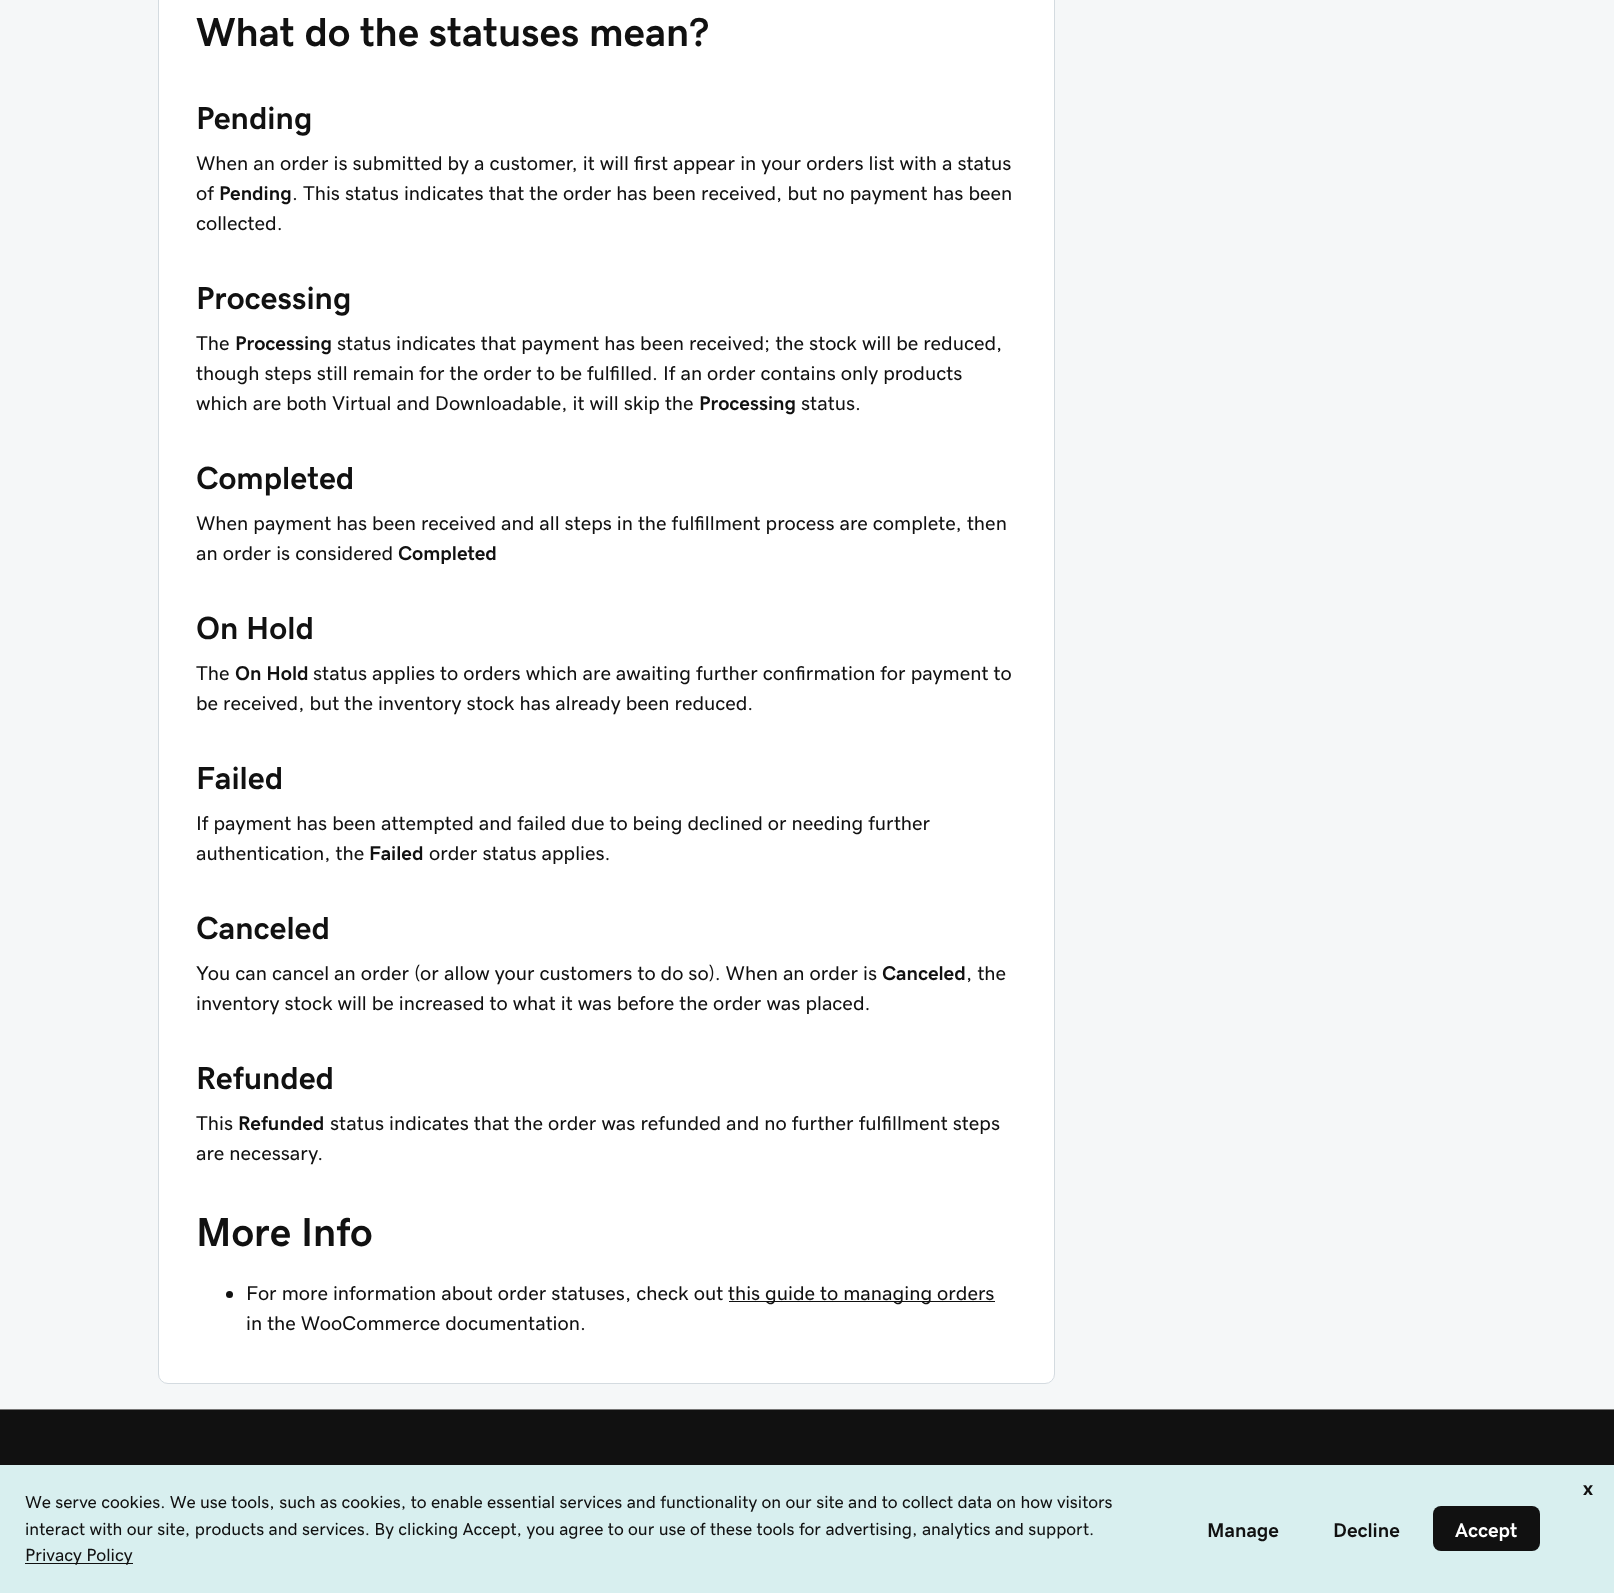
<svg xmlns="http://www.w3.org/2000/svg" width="1614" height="1593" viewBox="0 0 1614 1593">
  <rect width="100%" height="100%" fill="#f5f7f8"/>
  <rect x="158.5" y="-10.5" width="896" height="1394" rx="9.5" fill="#fff" stroke="#d4dbe0"/>
  <circle cx="229.5" cy="1294.5" r="3.5" fill="#111"/>
  <path d="M729 1301h266v1H729z" fill="#111"/>
  <path d="M0 1410h1614v55H0z" fill="#111"/>
  <path d="M0 1409h1614v1H0z" fill="#767676"/>
  <path d="M0 1465h1614v128H0z" fill="#d8efef"/>
  <path d="M25 1563h108v1H25z" fill="#111"/>
  <rect x="1433" y="1506" width="107" height="45" rx="8" fill="#111"/>
  <text x="196" y="46" font-family="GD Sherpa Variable" font-size="40.5" font-weight="bold" fill="#111">What do the statuses mean?</text>
  <text x="196" y="129" font-family="GD Sherpa Variable" font-size="32" font-weight="800" fill="#111">Pending</text>
  <g font-family="GD Sherpa Variable" font-size="20" fill="#111">
    <text x="196" y="170">When an order is submitted by a customer, it will first appear in your orders list with a status</text>
    <text x="196" y="200">of</text>
  </g>
  <text x="219" y="200" font-family="GD Sherpa Variable" font-size="20" font-weight="bold" fill="#111">Pending</text>
  <g font-family="GD Sherpa Variable" font-size="20" fill="#111">
    <text x="292" y="200">. This status indicates that the order has been received, but no payment has been</text>
    <text x="196" y="230">collected.</text>
  </g>
  <text x="196" y="309" font-family="GD Sherpa Variable" font-size="32" font-weight="800" fill="#111">Processing</text>
  <text x="196" y="350" font-family="GD Sherpa Variable" font-size="20" fill="#111">The</text>
  <text x="235" y="350" font-family="GD Sherpa Variable" font-size="20" font-weight="bold" fill="#111">Processing</text>
  <g font-family="GD Sherpa Variable" font-size="20" fill="#111">
    <text x="337" y="350">status indicates that payment has been received; the stock will be reduced,</text>
    <text x="196" y="380">though steps still remain for the order to be fulfilled. If an order contains only products</text>
    <text x="196" y="410">which are both Virtual and Downloadable, it will skip the</text>
  </g>
  <text x="699" y="410" font-family="GD Sherpa Variable" font-size="20" font-weight="bold" fill="#111">Processing</text>
  <text x="801" y="410" font-family="GD Sherpa Variable" font-size="20" fill="#111">status.</text>
  <text x="196" y="489" font-family="GD Sherpa Variable" font-size="32" font-weight="800" fill="#111">Completed</text>
  <g font-family="GD Sherpa Variable" font-size="20" fill="#111">
    <text x="196" y="530">When payment has been received and all steps in the fulfillment process are complete, then</text>
    <text x="196" y="560">an order is considered</text>
  </g>
  <text x="398" y="560" font-family="GD Sherpa Variable" font-size="20" font-weight="bold" fill="#111">Completed</text>
  <text x="196" y="639" font-family="GD Sherpa Variable" font-size="32" font-weight="800" fill="#111">On Hold</text>
  <text x="196" y="680" font-family="GD Sherpa Variable" font-size="20" fill="#111">The</text>
  <text x="235" y="680" font-family="GD Sherpa Variable" font-size="20" font-weight="bold" fill="#111">On Hold</text>
  <g font-family="GD Sherpa Variable" font-size="20" fill="#111">
    <text x="313" y="680">status applies to orders which are awaiting further confirmation for payment to</text>
    <text x="196" y="710">be received, but the inventory stock has already been reduced.</text>
  </g>
  <text x="196" y="789" font-family="GD Sherpa Variable" font-size="32" font-weight="800" fill="#111">Failed</text>
  <g font-family="GD Sherpa Variable" font-size="20" fill="#111">
    <text x="196" y="830">If payment has been attempted and failed due to being declined or needing further</text>
    <text x="196" y="860">authentication, the</text>
  </g>
  <text x="369" y="860" font-family="GD Sherpa Variable" font-size="20" font-weight="bold" fill="#111">Failed</text>
  <text x="429" y="860" font-family="GD Sherpa Variable" font-size="20" fill="#111">order status applies.</text>
  <text x="196" y="939" font-family="GD Sherpa Variable" font-size="32" font-weight="800" fill="#111">Canceled</text>
  <text x="196" y="980" font-family="GD Sherpa Variable" font-size="20" fill="#111">You can cancel an order (or allow your customers to do so). When an order is</text>
  <text x="882" y="980" font-family="GD Sherpa Variable" font-size="20" font-weight="bold" fill="#111">Canceled</text>
  <g font-family="GD Sherpa Variable" font-size="20" fill="#111">
    <text x="966" y="980">, the</text>
    <text x="196" y="1010">inventory stock will be increased to what it was before the order was placed.</text>
  </g>
  <text x="196" y="1089" font-family="GD Sherpa Variable" font-size="32" font-weight="800" fill="#111">Refunded</text>
  <text x="196" y="1130" font-family="GD Sherpa Variable" font-size="20" fill="#111">This</text>
  <text x="238" y="1130" font-family="GD Sherpa Variable" font-size="20" font-weight="bold" fill="#111">Refunded</text>
  <g font-family="GD Sherpa Variable" font-size="20" fill="#111">
    <text x="330" y="1130">status indicates that the order was refunded and no further fulfillment steps</text>
    <text x="196" y="1160">are necessary.</text>
  </g>
  <text x="196" y="1246" font-family="GD Sherpa Variable" font-size="40.5" font-weight="bold" fill="#111">More Info</text>
  <g font-family="GD Sherpa Variable" font-size="20" fill="#111">
    <text x="246" y="1300">For more information about order statuses, check out</text>
    <text x="728" y="1300">this guide to managing orders</text>
    <text x="246" y="1330">in the WooCommerce documentation.</text>
  </g>
  <text x="1583" y="1495" font-family="'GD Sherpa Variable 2'" font-size="20" font-weight="bold" fill="#111">x</text>
  <g font-family="GD Sherpa Variable" font-size="17.5" fill="#111">
    <text x="25" y="1508">We serve cookies. We use tools, such as cookies, to enable essential services and functionality on our site and to collect data on how visitors</text>
    <text x="25" y="1535">interact with our site, products and services. By clicking Accept, you agree to our use of these tools for advertising, analytics and support.</text>
  </g>
  <text x="25" y="1561" font-family="GD Sherpa Variable" font-size="17.75" fill="#111">Privacy Policy</text>
  <g font-family="'GD Sherpa Variable 2'" font-size="20" font-weight="bold" fill="#111">
    <text x="1207" y="1537">Manage</text>
    <text x="1333" y="1537">Decline</text>
  </g>
  <text x="1455" y="1537" font-family="'GD Sherpa Variable 2'" font-size="20" font-weight="bold" fill="#fff">Accept</text>
</svg>
